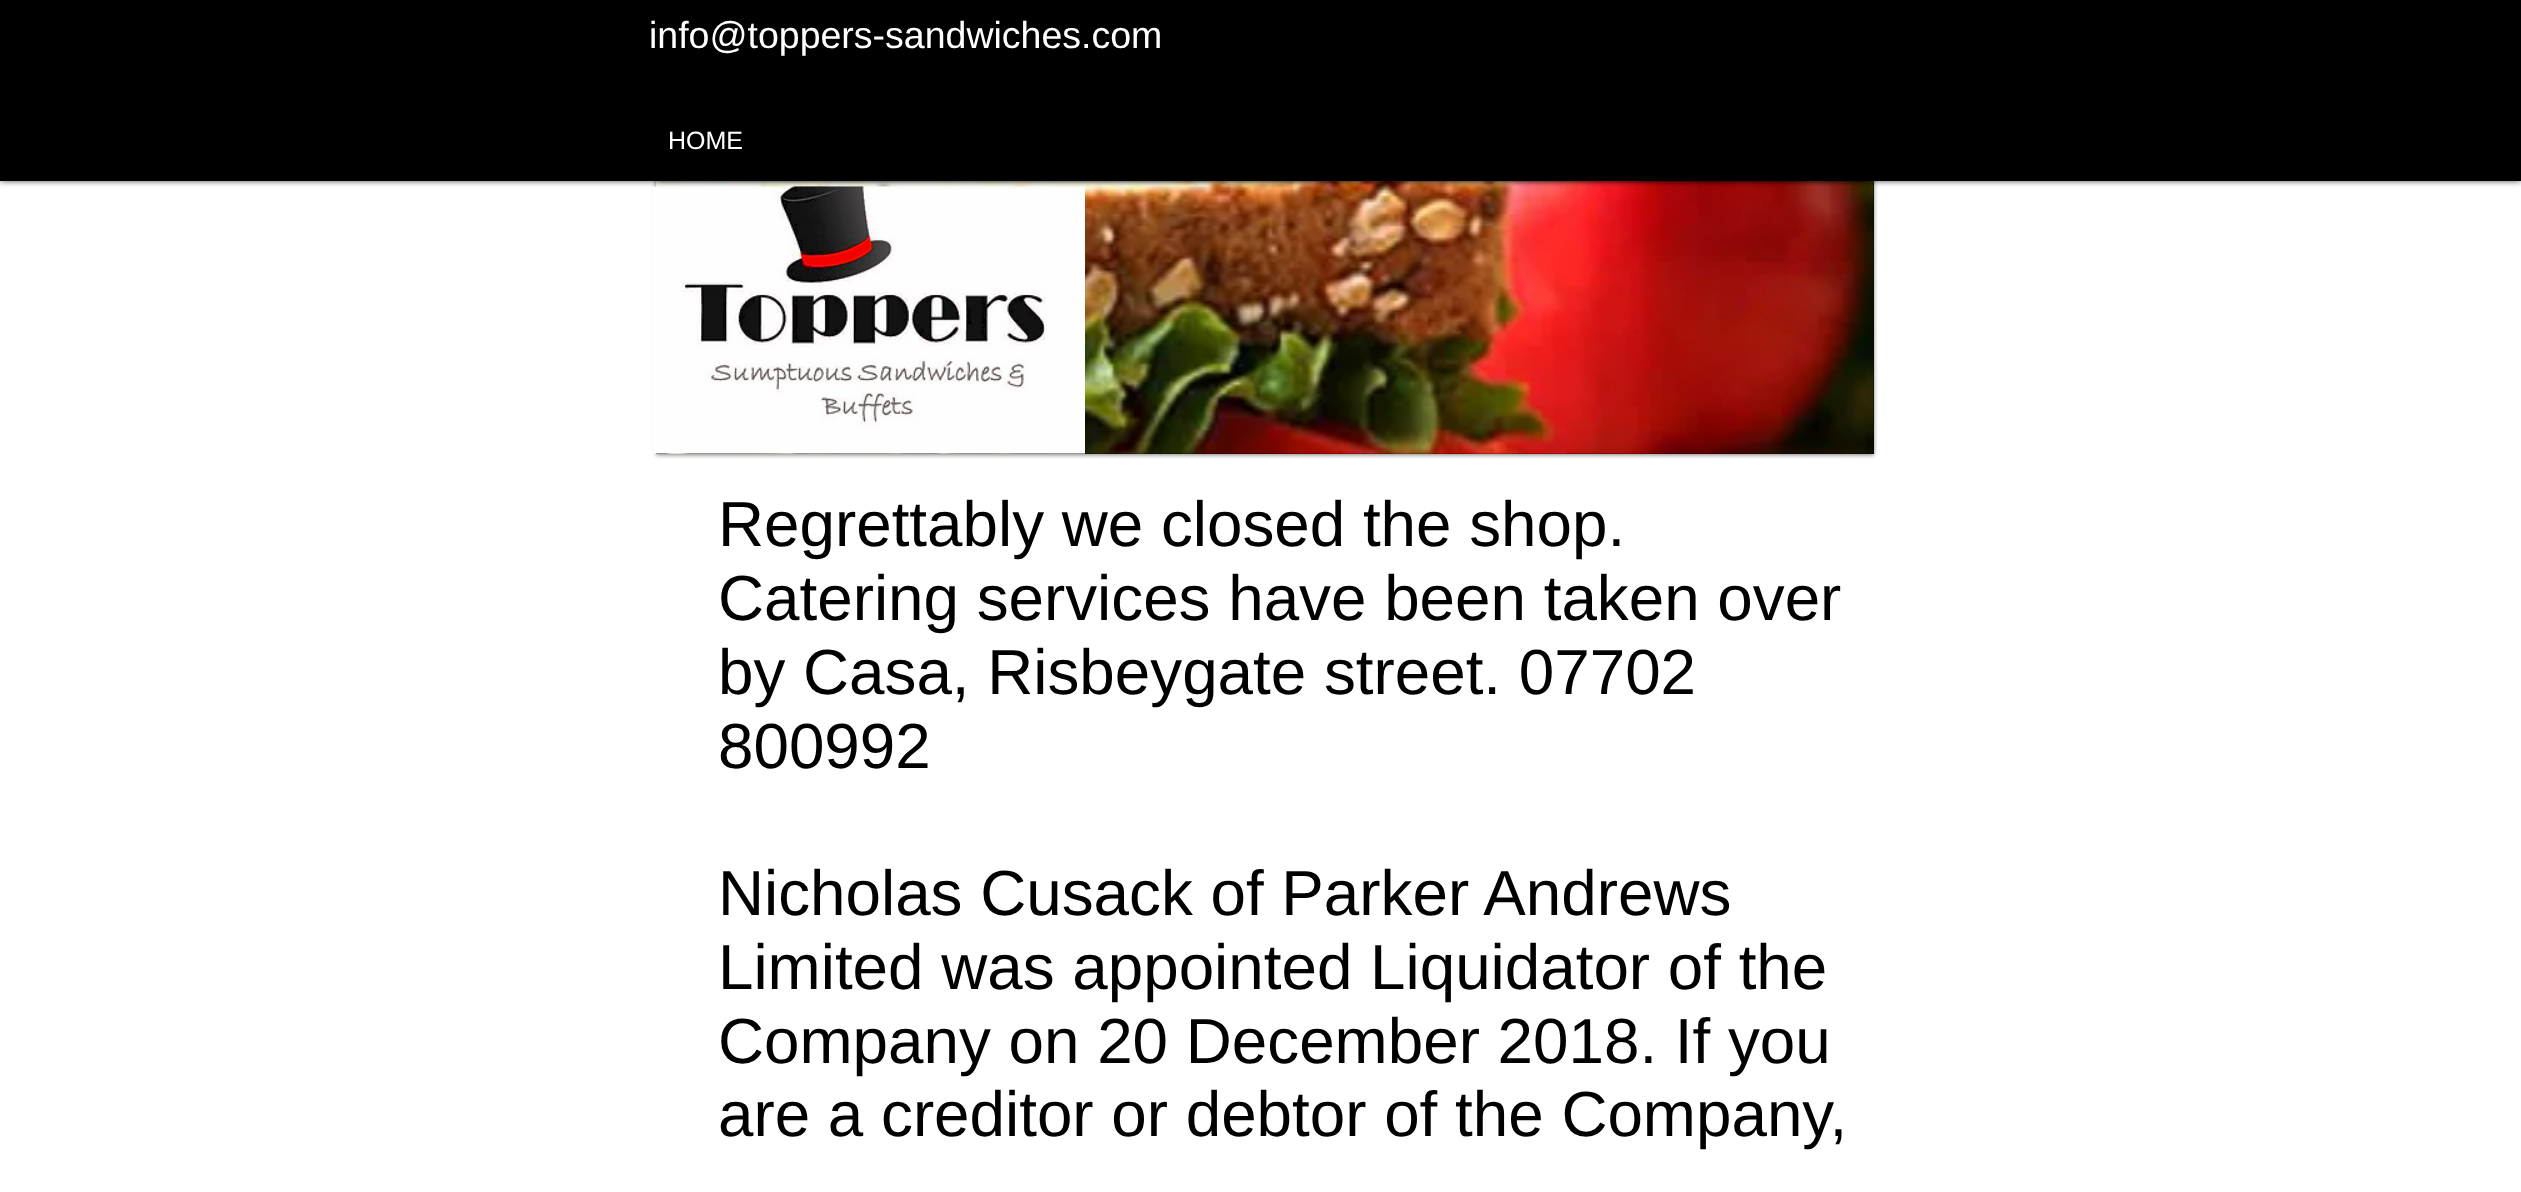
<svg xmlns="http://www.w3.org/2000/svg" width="2521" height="1192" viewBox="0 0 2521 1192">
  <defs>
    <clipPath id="clip1"><path d="M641 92H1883V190H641ZM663 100H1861C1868 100 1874 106 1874 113V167C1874 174 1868 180 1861 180H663C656 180 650 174 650 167V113C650 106 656 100 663 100Z" clip-rule="evenodd"/></clipPath>
  </defs>
  <rect width="100%" height="100%" fill="#fff"/>
  <path d="M656 11h1218v444H656z" fill="#00000080" filter="blur(2px)"/>
  <path d="M656 181h1218v273H656z" fill="#000"/>
  <image x="656" y="181" width="1218" height="273" href="img/1.png"/>
  <image x="653" y="186" width="432" height="268" href="img/2.png"/>
  <path d="M0 0h2521v181H0z" fill="#000000b3" filter="blur(3px)"/>
  <path d="M0 0h2521v181H0z" fill="#000"/>
  <g clip-path="url(#clip1)">
    <rect x="650" y="101" width="1224" height="80" rx="13" fill="#00000099" filter="blur(2.5px)"/>
  </g>
  <text x="649" y="48" font-family="Liberation Sans" font-size="37.5" fill="#fff">info@toppers-sandwiches.com</text>
  <text x="668" y="149" font-family="Liberation Sans" font-size="25" fill="#fff">HOME</text>
  <g font-family="Liberation Sans" font-size="63.75" fill="#000">
    <text x="718" y="546">Regrettably we closed the shop.</text>
    <text x="718" y="620">Catering services have been taken over</text>
    <text x="718" y="694">by Casa, Risbeygate street. 07702</text>
    <text x="718" y="768">800992</text>
    <text x="718" y="915">Nicholas Cusack of Parker Andrews</text>
    <text x="718" y="989">Limited was appointed Liquidator of the</text>
    <text x="718" y="1063">Company on 20 December 2018. If you</text>
    <text x="718" y="1136">are a creditor or debtor of the Company,</text>
  </g>
</svg>
